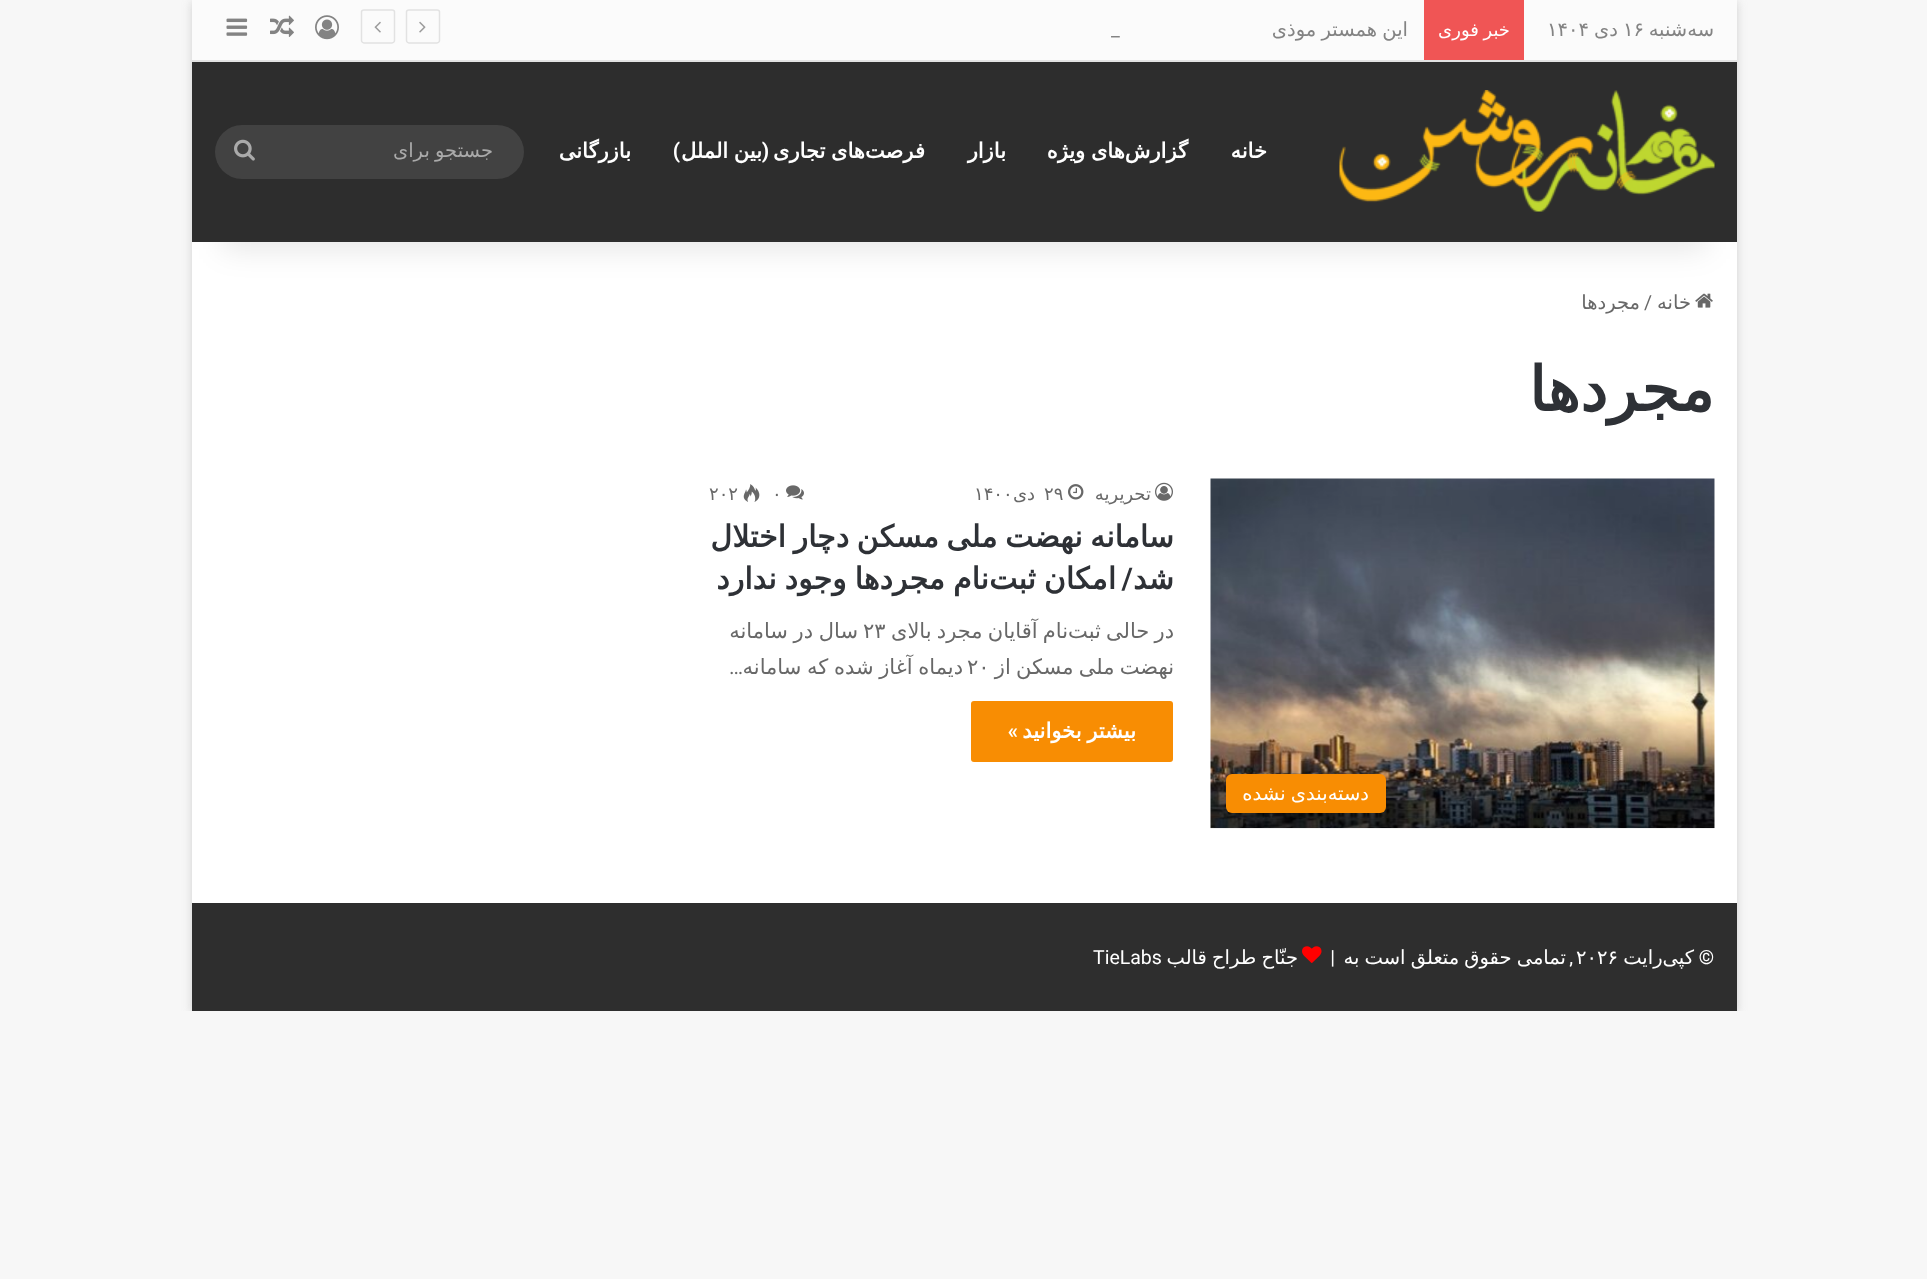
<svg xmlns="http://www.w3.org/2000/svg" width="1927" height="1279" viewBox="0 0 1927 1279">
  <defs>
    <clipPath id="clip1"><path d="M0 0h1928v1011H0z"/></clipPath>
  </defs>
  <rect width="100%" height="100%" fill="#f7f7f7"/>
  <g clip-path="url(#clip1)">
    <path d="M192 2h1545v1011H192z" fill="#ababab80" filter="blur(5px)"/>
  </g>
  <path d="M192 242h1545v661H192z" fill="#fff"/>
  <image x="1695" y="293" width="18" height="15" href="img/8.png"/>
  <path d="M222 68h1485v181H222z" fill="#0000001a" filter="blur(15px)"/>
  <path d="M192 0h1545v60H192z" fill="#fbfbfb"/>
  <path d="M192 60h1545v2H192z" fill="#e2e2e2"/>
  <path d="M1424 0h100v60H1424z" fill="#f05555"/>
  <path d="M437 43H409C407.5 43 406.5 41.5 406.5 40.5V12C406.5 11 407.5 10 409 10H437C438.5 10 439.5 11 439.5 12V40.5C439.5 41.5 438.5 43 437 43Z" fill="none" stroke="#e2e2e2" stroke-width="1.5"/>
  <image x="419" y="21" width="7" height="12" href="img/1.png"/>
  <path d="M392 43H364C362.5 43 361.5 41.5 361.5 40.5V12C361.5 11 362.5 10 364 10H392C393.5 10 394.5 11 394.5 12V40.5C394.5 41.5 393.5 43 392 43Z" fill="none" stroke="#e2e2e2" stroke-width="1.5"/>
  <image x="374" y="21" width="7" height="12" href="img/2.png"/>
  <image x="315" y="15" width="24" height="25" href="img/3.png"/>
  <image x="270" y="15" width="24" height="22" href="img/4.png"/>
  <image x="226" y="18" width="22" height="18" href="img/5.png"/>
  <path d="M192 62h1545v180H192z" fill="#2d2d2d"/>
  <image x="1339" y="90" width="376" height="122" href="img/6.png"/>
  <rect x="215" y="125" width="309" height="54" rx="27" fill="#424242"/>
  <image x="234" y="139" width="21" height="22" href="img/7.png"/>
  <image x="1155" y="482" width="18" height="19" href="img/9.png"/>
  <image x="1068" y="484" width="16" height="16" href="img/10.png"/>
  <image x="786" y="485" width="18" height="15" href="img/11.png"/>
  <image x="743" y="484" width="17" height="18" href="img/12.png"/>
  <rect x="971" y="701" width="202" height="61" rx="3" fill="#f88d03"/>
  <image x="1210" y="478" width="505" height="351" href="img/13.png"/>
  <rect x="1226" y="774" width="160" height="39" rx="6" fill="#f88d03"/>
  <path d="M192 903h1545v108H192z" fill="#2e2e2e"/>
  <image x="1302" y="946" width="20" height="17" href="img/14.png"/>
  <text x="1714" y="36" font-family="DejaVu Sans" font-size="19.5" direction="rtl" fill="#838383">سه‌شنبه</text>
  <text x="1623" y="36" font-family="DejaVu Sans" font-size="19.5" fill="#838383">۱۶</text>
  <text x="1618" y="36" font-family="DejaVu Sans" font-size="19.5" direction="rtl" fill="#838383">دی</text>
  <text x="1547" y="36" font-family="DejaVu Sans" font-size="19.5" fill="#838383">۱۴۰۴</text>
  <text x="1510" y="36" word-spacing="-1" font-family="DejaVu Sans" font-size="18" direction="rtl" fill="#fff">خبر فوری</text>
  <text x="1408" y="36" word-spacing="-1" font-family="DejaVu Sans" font-size="19.5" direction="rtl" fill="#838383">این همستر موذی</text>
  <text x="1111" y="36" font-family="Roboto" font-size="19.5" fill="#838383">_</text>
  <g font-family="DejaVu Sans" font-size="21" font-weight="bold" direction="rtl" fill="#fff">
    <text x="1267" y="158">خانه</text>
    <text x="1188" y="158" word-spacing="-1">گزارش‌های ویژه</text>
    <text x="1006" y="158">بازار</text>
    <text x="925" y="158" word-spacing="-1">فرصت‌های تجاری</text>
  </g>
  <text x="769" y="158" font-family="Roboto" font-size="21" font-weight="bold" direction="rtl" fill="#fff">(</text>
  <text x="762" y="158" word-spacing="-1" font-family="DejaVu Sans" font-size="21" font-weight="bold" direction="rtl" fill="#fff">بین الملل</text>
  <text x="680" y="158" font-family="Roboto" font-size="21" font-weight="bold" direction="rtl" fill="#fff">)</text>
  <text x="631" y="158" font-family="DejaVu Sans" font-size="21" font-weight="bold" direction="rtl" fill="#fff">بازرگانی</text>
  <text x="493" y="157" word-spacing="-1" font-family="DejaVu Sans" font-size="19.5" direction="rtl" fill="#aaa">جستجو برای</text>
  <text x="1691" y="309" font-family="DejaVu Sans" font-size="19.5" direction="rtl" fill="#686868">خانه</text>
  <text x="1644" y="309" font-family="Roboto" font-size="19.5" fill="#686868">/</text>
  <text x="1640" y="309" font-family="DejaVu Sans" font-size="19.5" direction="rtl" fill="#686868">مجردها</text>
  <text x="1714" y="411" font-family="DejaVu Sans" font-size="61.5" font-weight="bold" direction="rtl" fill="#2e3136">مجردها</text>
  <text x="1151" y="500" font-family="DejaVu Sans" font-size="18" direction="rtl" fill="#686868">تحریریه</text>
  <text x="1044" y="500" font-family="DejaVu Sans" font-size="18" fill="#686868">۲۹</text>
  <text x="1035" y="500" font-family="DejaVu Sans" font-size="18" direction="rtl" fill="#686868">دی</text>
  <g font-family="DejaVu Sans" font-size="18" fill="#686868">
    <text x="974" y="500">۱۴۰۰</text>
    <text x="772" y="500">۰</text>
    <text x="709" y="500">۲۰۲</text>
  </g>
  <g font-family="DejaVu Sans" font-size="30" font-weight="bold" direction="rtl" fill="#2e3136">
    <text x="1174" y="547" word-spacing="-2">سامانه نهضت ملی مسکن دچار اختلال</text>
    <text x="1174" y="589">شد</text>
  </g>
  <text x="1133" y="589" font-family="Roboto" font-size="30" font-weight="600" direction="rtl" fill="#2e3136">/</text>
  <text x="1116" y="589" word-spacing="-1.5" font-family="DejaVu Sans" font-size="30" font-weight="bold" direction="rtl" fill="#2e3136">امکان ثبت‌نام مجردها وجود ندارد</text>
  <text x="1174" y="638" word-spacing="-1.5" font-family="DejaVu Sans" font-size="21" direction="rtl" fill="#686868">در حالی ثبت‌نام آقایان مجرد بالای</text>
  <text x="863" y="638" font-family="DejaVu Sans" font-size="21" fill="#686868">۲۳</text>
  <g font-family="DejaVu Sans" font-size="21" direction="rtl" fill="#686868">
    <text x="858" y="638" word-spacing="-1">سال در سامانه</text>
    <text x="1174" y="674" word-spacing="-1.5">نهضت ملی مسکن از</text>
  </g>
  <text x="967" y="674" font-family="DejaVu Sans" font-size="21" fill="#686868">۲۰</text>
  <text x="963" y="674" word-spacing="-1" font-family="DejaVu Sans" font-size="21" direction="rtl" fill="#686868">دیماه آغاز شده که سامانه</text>
  <text x="743" y="674" font-family="Roboto" font-size="21" direction="rtl" fill="#686868">…</text>
  <text x="1136" y="738" word-spacing="-1" font-family="DejaVu Sans" font-size="21" font-weight="bold" direction="rtl" fill="#fff">بیشتر بخوانید</text>
  <text x="1018" y="738" font-family="Roboto" font-size="21" font-weight="600" direction="rtl" fill="#fff">»</text>
  <text x="1369" y="800" word-spacing="-1" font-family="DejaVu Sans" font-size="19.5" direction="rtl" fill="#fff">دسته‌بندی نشده</text>
  <text x="1714" y="964" font-family="Roboto" font-size="19.5" direction="rtl" fill="#fff">©</text>
  <text x="1694" y="964" font-family="DejaVu Sans" font-size="19.5" direction="rtl" fill="#fff">کپی‌رایت</text>
  <text x="1576" y="964" font-family="DejaVu Sans" font-size="19.5" fill="#fff">۲۰۲۶</text>
  <text x="1573" y="964" font-family="Roboto" font-size="19.5" direction="rtl" fill="#fff">,</text>
  <text x="1566" y="964" word-spacing="-1" font-family="DejaVu Sans" font-size="19.5" direction="rtl" fill="#fff">تمامی حقوق متعلق است به</text>
  <text x="1335" y="964" font-family="Roboto" font-size="19.5" direction="rtl" fill="#fff">|</text>
  <text x="1298" y="964" word-spacing="-1" font-family="DejaVu Sans" font-size="19.5" direction="rtl" fill="#fff">جنّاح طراح قالب</text>
  <text x="1093" y="964" font-family="Roboto" font-size="19.5" fill="#fff">TieLabs</text>
</svg>
